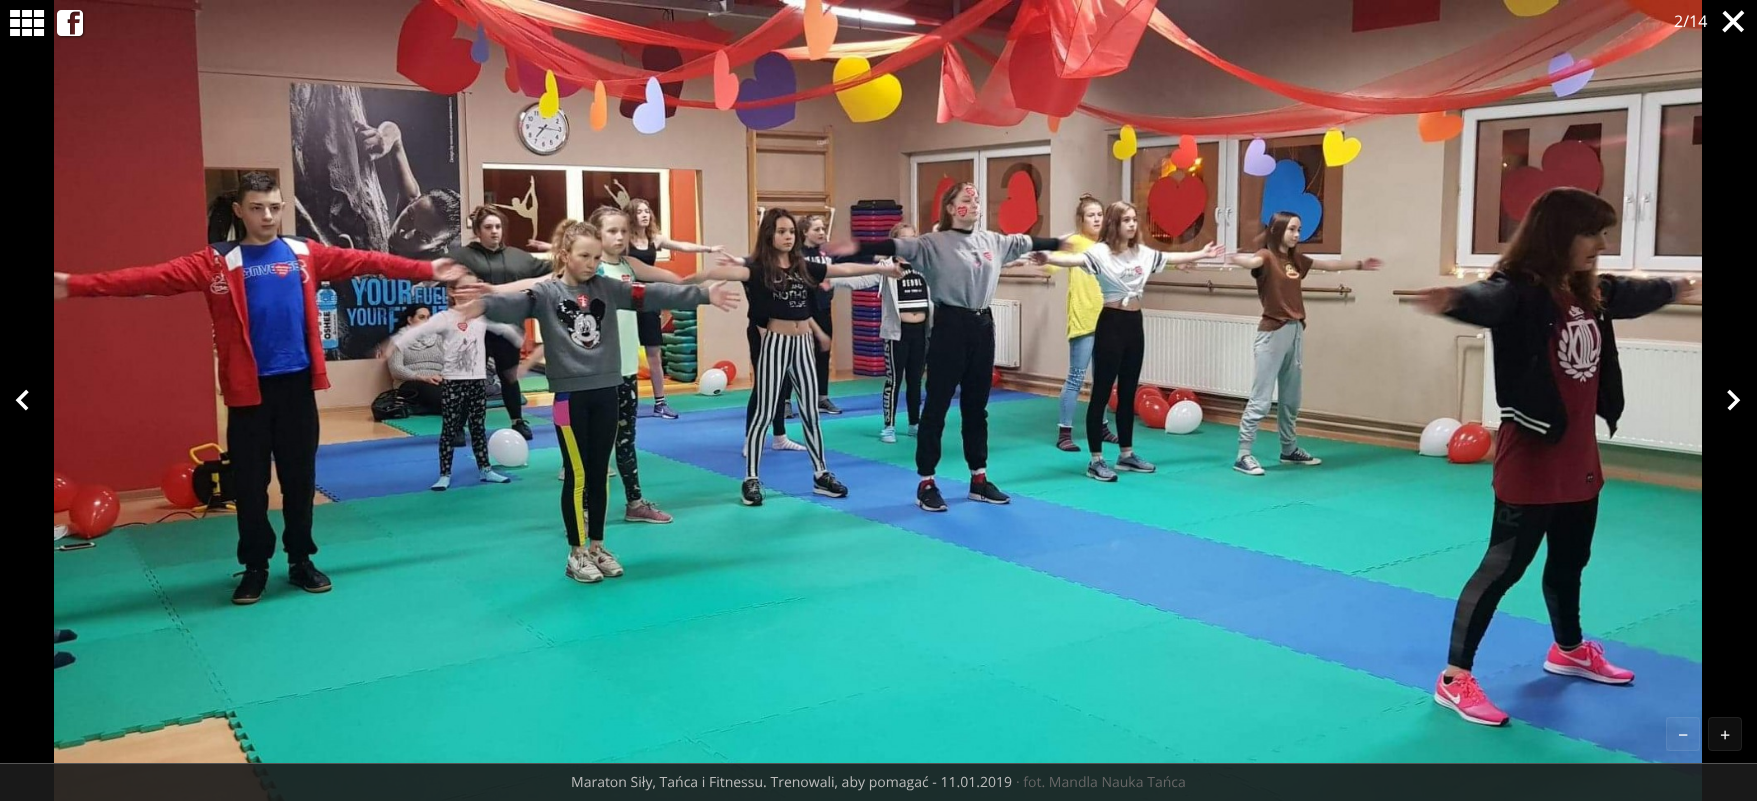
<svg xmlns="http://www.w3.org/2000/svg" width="1757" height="801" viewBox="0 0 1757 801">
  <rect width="100%" height="100%" fill="#000"/>
  <image x="54" y="0" width="1648" height="801" href="img/1.png"/>
  <image x="1722" y="10" width="23" height="23" href="img/2.png"/>
  <image x="15" y="389" width="14" height="22" href="img/3.png"/>
  <image x="1727" y="389" width="14" height="22" href="img/4.png"/>
  <image x="10" y="10" width="35" height="26" href="img/5.png"/>
  <image x="56" y="10" width="30" height="29" href="img/6.png"/>
  <path d="M1666 717h34v34H1666z" fill="#ffffff0f"/>
  <rect x="1666.5" y="717.5" width="33" height="33" rx="3.5" fill="none" stroke="#ffffff14"/>
  <rect x="1708" y="717" width="34" height="34" rx="4" fill="#0f0f0f"/>
  <rect x="1708.5" y="717.5" width="33" height="33" rx="3.5" fill="none" stroke="#ffffff14"/>
  <path d="M0 764h1757v37H0z" fill="#1c1c1ce6"/>
  <path d="M0 763h1757v1H0z" fill="#555"/>
  <text x="1674" y="27" font-family="Open Sans" font-size="16" fill="#fff">2/14</text>
  <g font-family="Liberation Serif" font-size="18" font-weight="bold" fill="#fff">
    <text x="1678" y="741">−</text>
    <text x="1720" y="741">+</text>
  </g>
  <text x="571" y="787" font-family="Open Sans" font-size="14" fill="#bcbcbc">Maraton Siły, Tańca i Fitnessu. Trenowali, aby pomagać - 11.01.2019</text>
  <text x="1016" y="787" font-family="Open Sans" font-size="14" fill="#666">· fot. Mandla Nauka Tańca</text>
</svg>
